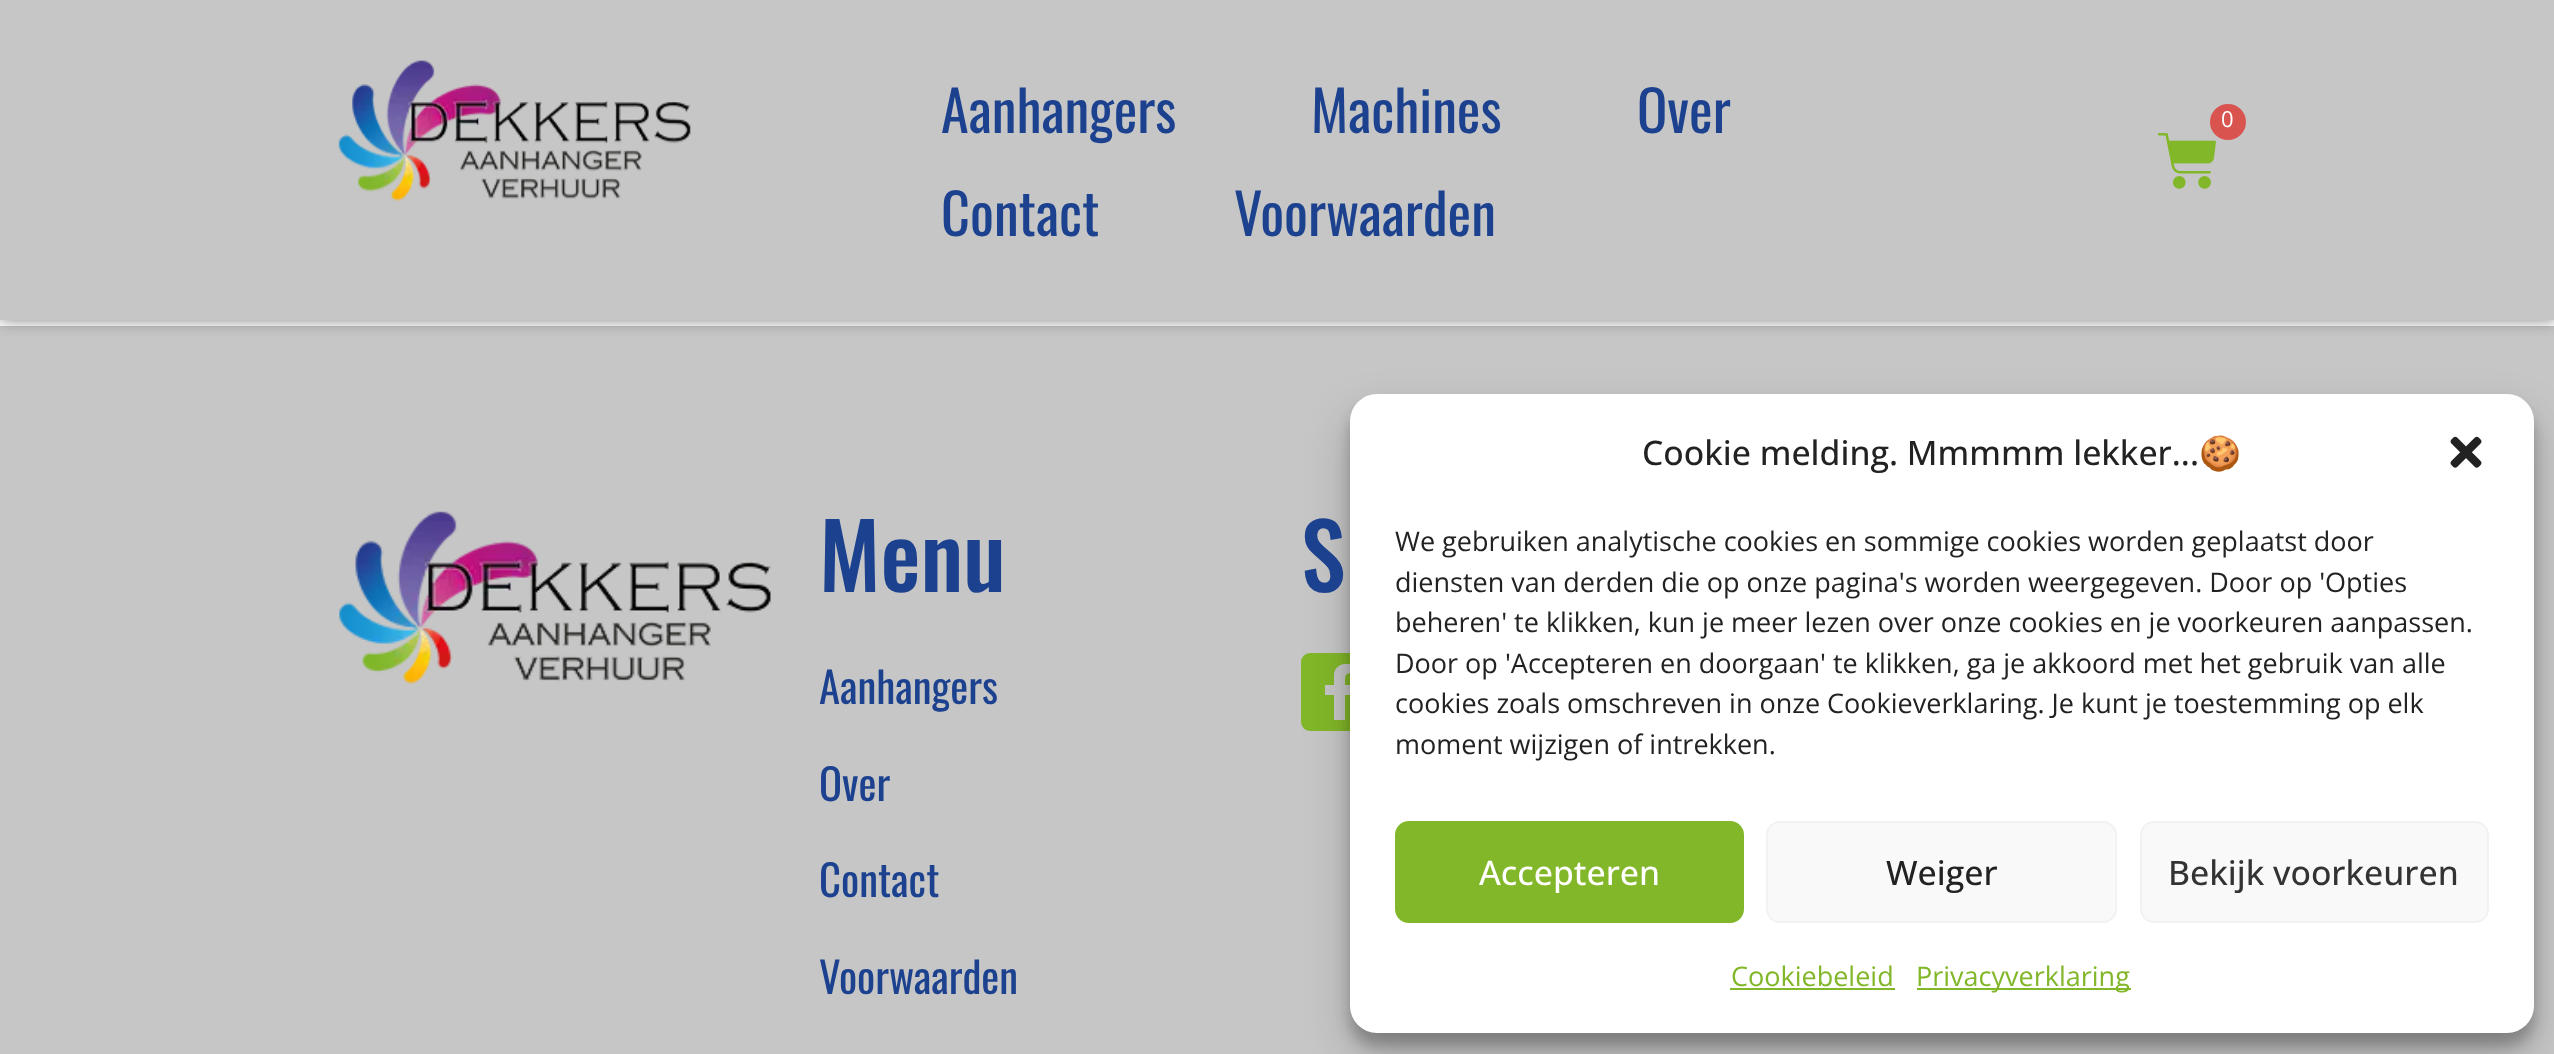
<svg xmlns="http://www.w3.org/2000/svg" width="2554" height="1054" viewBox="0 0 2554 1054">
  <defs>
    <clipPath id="clip1"><path d="M1312 664h56v56H1312z"/></clipPath>
  </defs>
  <rect width="100%" height="100%" fill="#fff"/>
  <path d="M0 326h2554v728H0z" fill="#c6c6c6"/>
  <path d="M0 0h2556v320H0z" fill="#00000080" filter="blur(8px)"/>
  <path d="M0 0h2554v320H0z" fill="#c6c6c6"/>
  <image x="338" y="60" width="353" height="142" href="img/1.png"/>
  <image x="2158" y="133" width="58" height="56" href="img/2.png"/>
  <circle cx="2228" cy="122" r="18" fill="#d9534f"/>
  <image x="339" y="511" width="432" height="173" href="img/3.png"/>
  <rect x="1301" y="653" width="78" height="78" rx="9" fill="#82b729"/>
  <g clip-path="url(#clip1)">
    <path d="M1353 695L1355 685H1345C1345 675 1344 673 1355 673V664C1346 663 1336 663 1334 674V685H1325V695H1334V720H1345V695Z" fill="#c6c6c6"/>
  </g>
  <rect x="1350" y="407" width="1184" height="639" rx="27" fill="#0000003b" filter="blur(7px)"/>
  <rect x="1350" y="416" width="1184" height="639" rx="27" fill="#00000030" filter="blur(22.5px)"/>
  <rect x="1350" y="394" width="1184" height="639" rx="27" fill="#fff"/>
  <image x="2450" y="436" width="32" height="32" href="img/4.png"/>
  <rect x="1396" y="822" width="347" height="100" rx="13" fill="#82b729" stroke="#82b729" stroke-width="2"/>
  <rect x="1767" y="822" width="349" height="100" rx="13" fill="#f9f9f9" stroke="#f2f2f2" stroke-width="2"/>
  <rect x="2141" y="822" width="347" height="100" rx="13" fill="#f9f9f9" stroke="#f2f2f2" stroke-width="2"/>
  <path d="M1730 988h165v2H1730z" fill="#82b729"/>
  <path d="M1917 988h214v2H1917z" fill="#82b729"/>
  <g font-family="Oswald" font-size="56.25" fill="#1b418f">
    <text x="941" y="133">Aanhangers</text>
    <text x="1311" y="133">Machines</text>
    <text x="1637" y="133">Over</text>
    <text x="941" y="236">Contact</text>
    <text x="1234" y="236">Voorwaarden</text>
  </g>
  <text x="2221" y="127" font-family="Open Sans" font-size="22" fill="#fff">0</text>
  <text x="819" y="592" font-family="Oswald" font-size="90" font-weight="500" fill="#1b418f">Menu</text>
  <g font-family="Oswald" font-size="42.75" fill="#1b418f">
    <text x="819" y="704">Aanhangers</text>
    <text x="819" y="801">Over</text>
    <text x="819" y="897">Contact</text>
    <text x="819" y="994">Voorwaarden</text>
  </g>
  <text x="1301" y="592" font-family="Oswald" font-size="90" font-weight="500" fill="#1b418f">S</text>
  <text x="1642" y="465" font-family="Open Sans" font-size="33.75" font-weight="500" fill="#222">Cookie melding. Mmmmm lekker...</text>
  <text x="2199" y="465" font-family="Noto Color Emoji" font-size="33.75" fill="#222">🍪</text>
  <g font-family="Open Sans" font-size="27" fill="#222">
    <text x="1395" y="551">We gebruiken analytische cookies en sommige cookies worden geplaatst door</text>
    <text x="1395" y="592">diensten van derden die op onze pagina's worden weergegeven. Door op 'Opties</text>
    <text x="1395" y="632">beheren' te klikken, kun je meer lezen over onze cookies en je voorkeuren aanpassen.</text>
    <text x="1395" y="673">Door op 'Accepteren en doorgaan' te klikken, ga je akkoord met het gebruik van alle</text>
    <text x="1395" y="713">cookies zoals omschreven in onze Cookieverklaring. Je kunt je toestemming op elk</text>
    <text x="1395" y="754">moment wijzigen of intrekken.</text>
  </g>
  <text x="1479" y="885" font-family="Open Sans" font-size="33.75" font-weight="500" fill="#fff">Accepteren</text>
  <text x="1886" y="885" font-family="Open Sans" font-size="33.75" font-weight="500" fill="#222">Weiger</text>
  <text x="2168" y="885" font-family="Open Sans" font-size="33.75" font-weight="500" fill="#333">Bekijk voorkeuren</text>
  <g font-family="Open Sans" font-size="27" fill="#82b729">
    <text x="1731" y="986">Cookiebeleid</text>
    <text x="1916" y="986">Privacyverklaring</text>
  </g>
</svg>
